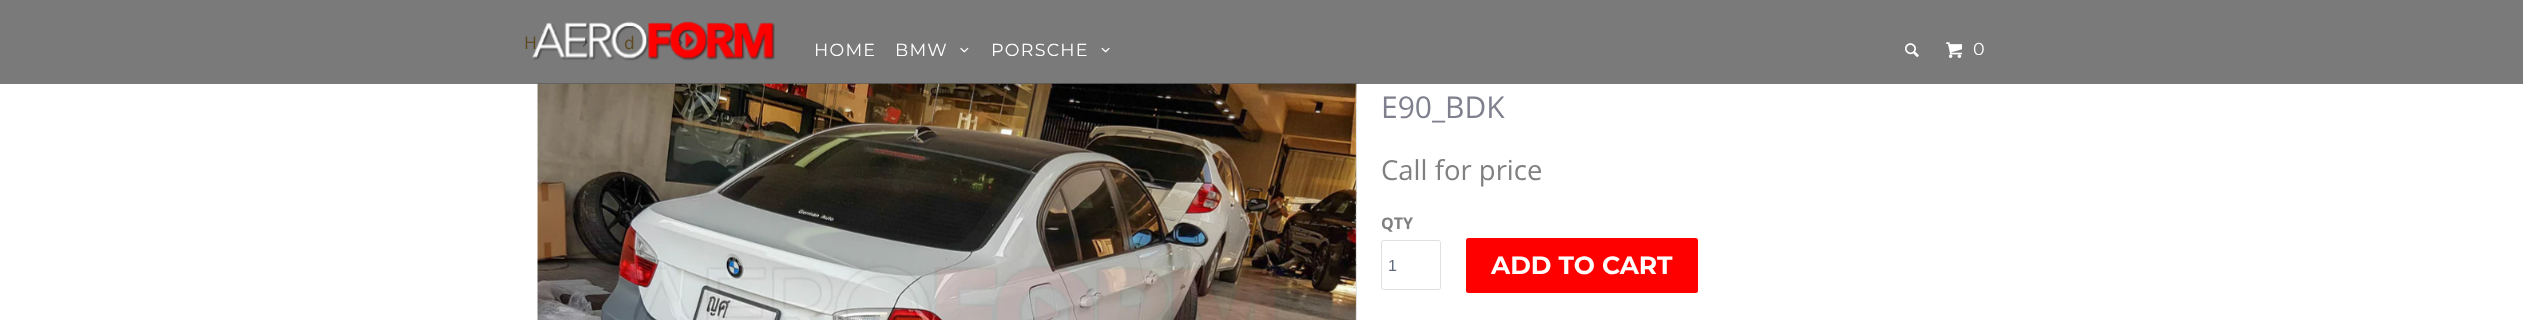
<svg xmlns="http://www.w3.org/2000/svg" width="2523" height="320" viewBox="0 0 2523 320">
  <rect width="100%" height="100%" fill="#fff"/>
  <image x="582" y="38" width="6" height="9" href="img/1.png"/>
  <image x="677" y="38" width="6" height="9" href="img/1.png"/>
  <image x="537" y="83" width="819" height="237" href="img/2.png"/>
  <image x="1355" y="83" width="2" height="237" href="img/3.png"/>
  <rect x="1381.5" y="240.5" width="59" height="49" rx="2" fill="none" stroke="#dfdfdf"/>
  <rect x="1466" y="238" width="232" height="55" rx="2.5" fill="#f00"/>
  <g font-family="Open Sans" font-size="17.5" fill="#bc8420">
    <text x="524" y="49">H</text>
    <text x="624" y="49">d</text>
  </g>
  <text x="1381" y="118" font-family="Open Sans" font-size="30" fill="#7f808d">E90_BDK</text>
  <text x="1381" y="180" font-family="Open Sans" font-size="27.5" fill="#808080">Call for price</text>
  <text x="1381" y="229" font-family="Open Sans" font-size="16" font-weight="bold" fill="#808080">QTY</text>
  <text x="1388" y="271" font-family="Liberation Sans" font-size="16" fill="#5f6a7d">1</text>
  <text x="1491" y="274" font-family="Montserrat" font-size="25" font-weight="bold" fill="#fff">ADD TO CART</text>
  <path d="M0 0h2523v84H0z" fill="#21212199"/>
  <image x="532" y="21" width="243" height="40" href="img/4.png"/>
  <g font-family="Montserrat" font-size="17.5" letter-spacing="1.25" fill="#fff">
    <text x="814" y="56">HOME</text>
    <text x="895" y="56">BMW</text>
  </g>
  <image x="960" y="47" width="9" height="6" href="img/5.png"/>
  <text x="991" y="56" font-family="Montserrat" font-size="17.5" letter-spacing="1.25" fill="#fff">PORSCHE</text>
  <image x="1101" y="47" width="9" height="6" href="img/6.png"/>
  <image x="1905" y="43" width="14" height="14" href="img/7.png"/>
  <image x="1946" y="42" width="16" height="16" href="img/8.png"/>
  <text x="1973" y="55" font-family="Montserrat" font-size="17.5" letter-spacing="1.25" fill="#fff">0</text>
</svg>
